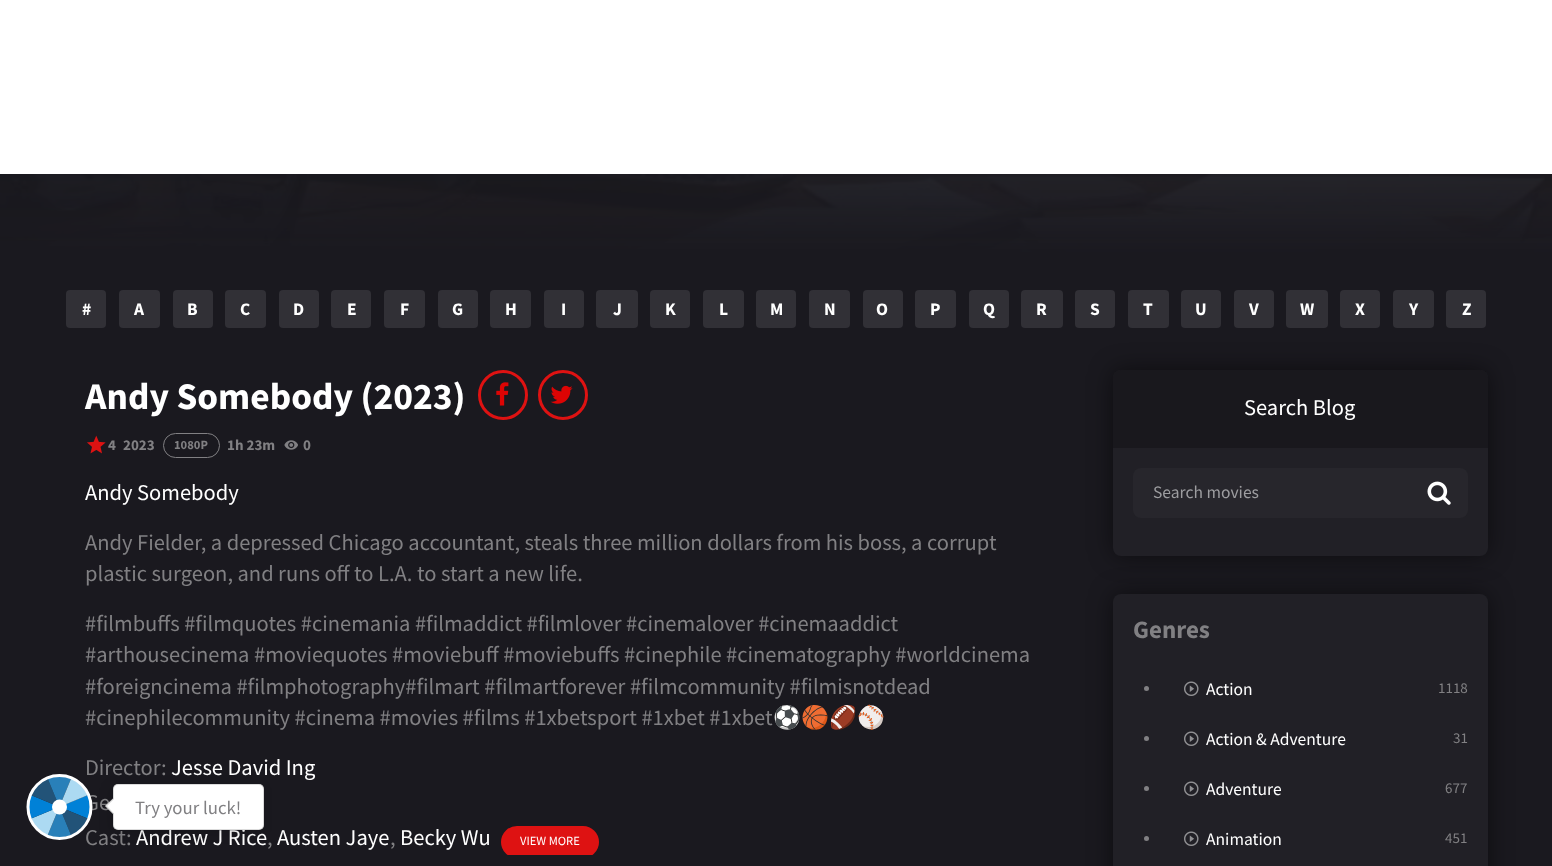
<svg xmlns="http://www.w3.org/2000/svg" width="1552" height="866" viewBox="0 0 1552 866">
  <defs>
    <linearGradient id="g1" gradientUnits="userSpaceOnUse" x1="776" y1="0" x2="776" y2="188"><stop offset="0" stop-color="#000"/><stop offset="1" stop-color="#000" stop-opacity="0"/></linearGradient>
    <clipPath id="clip1"><path d="M85 821h970v34H85z"/></clipPath>
  </defs>
  <rect width="100%" height="100%" fill="#1a191f"/>
  <path d="M0 0h1552v174H0z" fill="#fff"/>
  <image x="0" y="174" width="1552" height="78" href="img/1.png"/>
  <path d="M783 174h626v3H783z" fill="url(#g1)"/>
  <rect x="66" y="290" width="40" height="38" rx="4" fill="#313036"/>
  <rect x="119" y="290" width="41" height="38" rx="4" fill="#313036"/>
  <rect x="173" y="290" width="40" height="38" rx="4" fill="#313036"/>
  <rect x="225" y="290" width="41" height="38" rx="4" fill="#313036"/>
  <rect x="279" y="290" width="40" height="38" rx="4" fill="#313036"/>
  <rect x="331" y="290" width="40" height="38" rx="4" fill="#313036"/>
  <rect x="384" y="290" width="41" height="38" rx="4" fill="#313036"/>
  <rect x="438" y="290" width="40" height="38" rx="4" fill="#313036"/>
  <rect x="490" y="290" width="41" height="38" rx="4" fill="#313036"/>
  <rect x="544" y="290" width="40" height="38" rx="4" fill="#313036"/>
  <rect x="596" y="290" width="42" height="38" rx="4" fill="#313036"/>
  <rect x="650" y="290" width="40" height="38" rx="4" fill="#313036"/>
  <rect x="703" y="290" width="41" height="38" rx="4" fill="#313036"/>
  <rect x="756" y="290" width="40" height="38" rx="4" fill="#313036"/>
  <rect x="809" y="290" width="41" height="38" rx="4" fill="#313036"/>
  <rect x="863" y="290" width="40" height="38" rx="4" fill="#313036"/>
  <rect x="915" y="290" width="41" height="38" rx="4" fill="#313036"/>
  <rect x="969" y="290" width="40" height="38" rx="4" fill="#313036"/>
  <rect x="1021" y="290" width="42" height="38" rx="4" fill="#313036"/>
  <rect x="1075" y="290" width="40" height="38" rx="4" fill="#313036"/>
  <rect x="1128" y="290" width="41" height="38" rx="4" fill="#313036"/>
  <rect x="1181" y="290" width="40" height="38" rx="4" fill="#313036"/>
  <rect x="1234" y="290" width="40" height="38" rx="4" fill="#313036"/>
  <rect x="1286" y="290" width="42" height="38" rx="4" fill="#313036"/>
  <rect x="1340" y="290" width="40" height="38" rx="4" fill="#313036"/>
  <rect x="1393" y="290" width="41" height="38" rx="4" fill="#313036"/>
  <rect x="1446" y="290" width="40" height="38" rx="4" fill="#313036"/>
  <circle cx="503" cy="395" r="23.5" fill="none" stroke="#de1212" stroke-width="3"/>
  <image x="496" y="382" width="13" height="24" href="img/2.png"/>
  <circle cx="563" cy="395" r="23.5" fill="none" stroke="#de1212" stroke-width="3"/>
  <image x="550" y="385" width="23" height="19" href="img/3.png"/>
  <image x="87" y="435" width="19" height="19" href="img/4.png"/>
  <rect x="163.5" y="433.5" width="56" height="24" rx="12" fill="none" stroke="#818083"/>
  <image x="284" y="440" width="14" height="10" href="img/5.png"/>
  <g clip-path="url(#clip1)">
    <rect x="501" y="826" width="98" height="32" rx="16" fill="#de1212"/>
  </g>
  <rect x="1113" y="370" width="375" height="186" rx="8" fill="#00000080" filter="blur(12.5px)"/>
  <rect x="1113" y="370" width="375" height="186" rx="8" fill="#212026"/>
  <path d="M1121 370H1480C1484.5 370 1488 373.5 1488 378V448H1113V378C1113 373.5 1116.5 370 1121 370Z" fill="#19181d"/>
  <rect x="1133" y="468" width="335" height="50" rx="8" fill="#27262c"/>
  <image x="1427" y="481" width="24" height="24" href="img/6.png"/>
  <rect x="1113" y="594" width="375" height="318" rx="8" fill="#00000080" filter="blur(12.5px)"/>
  <rect x="1113" y="594" width="375" height="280" rx="8" fill="#212026"/>
  <circle cx="1146.5" cy="688.5" r="2.5" fill="#818083"/>
  <image x="1184" y="681" width="15" height="15" href="img/7.png"/>
  <circle cx="1146.5" cy="738.5" r="2.5" fill="#818083"/>
  <image x="1184" y="731" width="15" height="15" href="img/7.png"/>
  <circle cx="1146.5" cy="788.5" r="2.5" fill="#818083"/>
  <image x="1184" y="781" width="15" height="15" href="img/7.png"/>
  <circle cx="1146.5" cy="838.5" r="2.5" fill="#818083"/>
  <image x="1184" y="831" width="15" height="15" href="img/7.png"/>
  <g font-family="Source Sans Pro" font-size="17.5" font-weight="bold" fill="#fff">
    <text x="82" y="315">#</text>
    <text x="134" y="315">A</text>
    <text x="187" y="315">B</text>
    <text x="240" y="315">C</text>
    <text x="293" y="315">D</text>
    <text x="347" y="315">E</text>
    <text x="400" y="315">F</text>
    <text x="452" y="315">G</text>
    <text x="505" y="315">H</text>
    <text x="561" y="315">I</text>
    <text x="613" y="315">J</text>
    <text x="665" y="315">K</text>
    <text x="719" y="315">L</text>
    <text x="770" y="315">M</text>
    <text x="824" y="315">N</text>
    <text x="876" y="315">O</text>
    <text x="930" y="315">P</text>
    <text x="983" y="315">Q</text>
    <text x="1036" y="315">R</text>
    <text x="1090" y="315">S</text>
    <text x="1143" y="315">T</text>
    <text x="1195" y="315">U</text>
    <text x="1249" y="315">V</text>
    <text x="1300" y="315">W</text>
    <text x="1355" y="315">X</text>
    <text x="1409" y="315">Y</text>
    <text x="1462" y="315">Z</text>
  </g>
  <text x="85" y="409" font-family="Source Sans Pro" font-size="37.5" font-weight="bold" fill="#fff">Andy Somebody (2023)</text>
  <g font-family="Source Sans Pro" font-size="15" font-weight="bold" fill="#818083">
    <text x="108" y="450">4</text>
    <text x="123" y="450">2023</text>
  </g>
  <text x="174" y="449" font-family="Source Sans Pro" font-size="12.5" font-weight="bold" fill="#818083">1080P</text>
  <g font-family="Source Sans Pro" font-size="15" font-weight="bold" fill="#818083">
    <text x="227" y="450">1h 23m</text>
    <text x="303" y="450">0</text>
  </g>
  <text x="85" y="500" font-family="Source Sans Pro" font-size="22.5" fill="#fff">Andy Somebody</text>
  <g font-family="Source Sans Pro" font-size="22.5" fill="#818083">
    <text x="85" y="550">Andy Fielder, a depressed Chicago accountant, steals three million dollars from his boss, a corrupt</text>
    <text x="85" y="581">plastic surgeon, and runs off to L.A. to start a new life.</text>
    <text x="85" y="631">#filmbuffs #filmquotes #cinemania #filmaddict #filmlover #cinemalover #cinemaaddict</text>
    <text x="85" y="662">#arthousecinema #moviequotes #moviebuff #moviebuffs #cinephile #cinematography #worldcinema</text>
    <text x="85" y="694">#foreigncinema #filmphotography#filmart #filmartforever #filmcommunity #filmisnotdead</text>
    <text x="85" y="725">#cinephilecommunity #cinema #movies #films #1xbetsport #1xbet #1xbet</text>
  </g>
  <text x="773" y="725" font-family="Noto Color Emoji" font-size="22.5" fill="#818083">⚽️🏀🏈⚾️</text>
  <text x="85" y="775" font-family="Source Sans Pro" font-size="22.5" fill="#818083">Director:</text>
  <text x="171" y="775" font-family="Source Sans Pro" font-size="22.5" fill="#fff">Jesse David Ing</text>
  <g font-family="Source Sans Pro" font-size="22.5" fill="#818083">
    <text x="85" y="810">Ge</text>
    <text x="85" y="845">Cast:</text>
  </g>
  <text x="136" y="845" font-family="Source Sans Pro" font-size="22.5" fill="#fff">Andrew J Rice</text>
  <text x="267" y="845" font-family="Source Sans Pro" font-size="22.5" fill="#818083">,</text>
  <text x="277" y="845" font-family="Source Sans Pro" font-size="22.5" fill="#fff">Austen Jaye</text>
  <text x="390" y="845" font-family="Source Sans Pro" font-size="22.5" fill="#818083">,</text>
  <text x="400" y="845" font-family="Source Sans Pro" font-size="22.5" fill="#fff">Becky Wu</text>
  <text x="520" y="845" font-family="Source Sans Pro" font-size="12.5" fill="#fff">VIEW MORE</text>
  <text x="1244" y="415" font-family="Source Sans Pro" font-size="22.5" fill="#fff">Search Blog</text>
  <text x="1153" y="498" font-family="Source Sans Pro" font-size="17.5" fill="#9d9da0">Search movies</text>
  <text x="1133" y="638" font-family="Source Sans Pro" font-size="25" font-weight="bold" fill="#818083">Genres</text>
  <text x="1206" y="695" font-family="Source Sans Pro" font-size="17.5" fill="#fff">Action</text>
  <text x="1438" y="693" font-family="Source Sans Pro" font-size="15" fill="#818083">1118</text>
  <text x="1206" y="745" font-family="Source Sans Pro" font-size="17.5" fill="#fff">Action &amp; Adventure</text>
  <text x="1453" y="743" font-family="Source Sans Pro" font-size="15" fill="#818083">31</text>
  <text x="1206" y="795" font-family="Source Sans Pro" font-size="17.5" fill="#fff">Adventure</text>
  <text x="1445" y="793" font-family="Source Sans Pro" font-size="15" fill="#818083">677</text>
  <text x="1206" y="845" font-family="Source Sans Pro" font-size="17.5" fill="#fff">Animation</text>
  <text x="1445" y="843" font-family="Source Sans Pro" font-size="15" fill="#818083">451</text>
  <image x="29" y="777" width="61" height="60" href="img/8.png"/>
  <circle cx="59.5" cy="807" r="31.5" fill="none" stroke="#fff" stroke-width="3"/>
  <circle cx="59.5" cy="807" r="7.5" fill="#fff"/>
  <rect x="110" y="786" width="151" height="47" rx="5" fill="#00000021" filter="blur(6px)"/>
  <rect x="113" y="784" width="151" height="46" rx="5" fill="#fff"/>
  <rect x="113.5" y="784.5" width="150" height="45" rx="4.5" fill="none" stroke="#00000024"/>
  <path d="M113 798.5L121 806L113 814L105 806Z" fill="#fff"/>
  <path d="M113 814L105 806H107L114 813.5ZM105 806L113 798.5L114 799L107 806Z" fill="#00000029"/>
  <text x="135" y="814" font-family="Source Sans Pro" font-size="18.75" fill="#818083">Try your luck!</text>
</svg>
